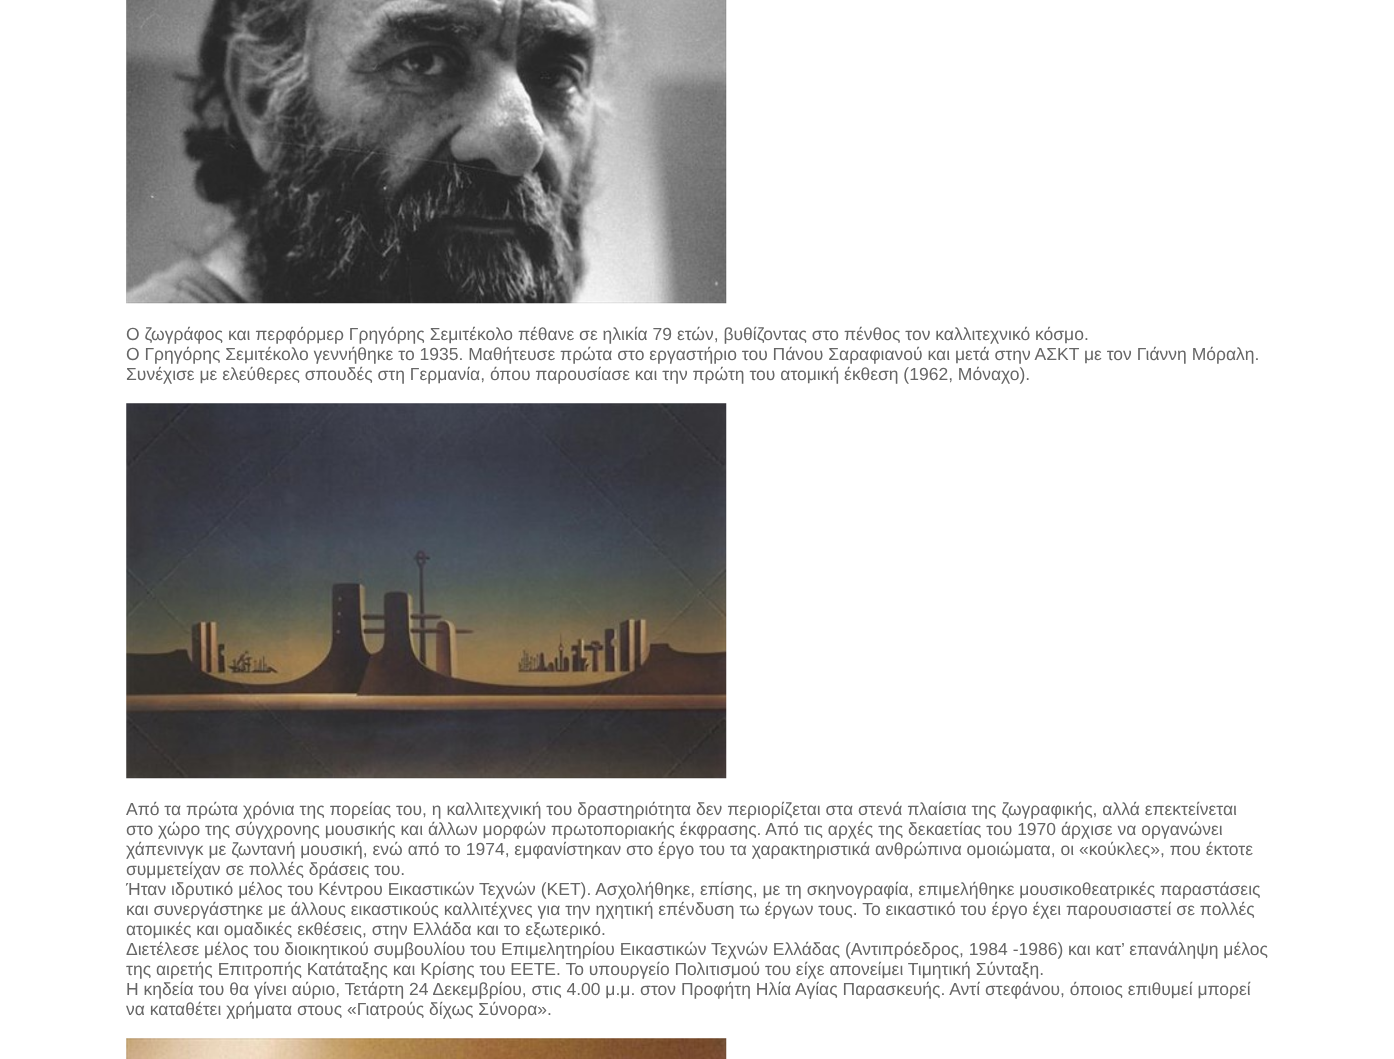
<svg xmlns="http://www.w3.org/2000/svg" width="1394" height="1059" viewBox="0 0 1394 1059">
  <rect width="100%" height="100%" fill="#fff"/>
  <image x="126" y="0" width="601" height="304" href="img/1.png"/>
  <image x="126" y="403" width="601" height="376" href="img/2.png"/>
  <image x="126" y="1038" width="601" height="21" href="img/3.png"/>
  <g font-family="Liberation Sans" font-size="17.5" fill="#666">
    <text x="126" y="340">Ο ζωγράφος και περφόρμερ Γρηγόρης Σεμιτέκολο πέθανε σε ηλικία 79 ετών, βυθίζοντας στο πένθος τον καλλιτεχνικό κόσμο.</text>
    <text x="126" y="360">Ο Γρηγόρης Σεμιτέκολο γεννήθηκε το 1935. Μαθήτευσε πρώτα στο εργαστήριο του Πάνου Σαραφιανού και μετά στην ΑΣΚΤ με τον Γιάννη Μόραλη.</text>
    <text x="126" y="380">Συνέχισε με ελεύθερες σπουδές στη Γερμανία, όπου παρουσίασε και την πρώτη του ατομική έκθεση (1962, Μόναχο).</text>
    <text x="126" y="815">Από τα πρώτα χρόνια της πορείας του, η καλλιτεχνική του δραστηριότητα δεν περιορίζεται στα στενά πλαίσια της ζωγραφικής, αλλά επεκτείνεται</text>
    <text x="126" y="835">στο χώρο της σύγχρονης μουσικής και άλλων μορφών πρωτοποριακής έκφρασης. Από τις αρχές της δεκαετίας του 1970 άρχισε να οργανώνει</text>
    <text x="126" y="855">χάπενινγκ με ζωντανή μουσική, ενώ από το 1974, εμφανίστηκαν στο έργο του τα χαρακτηριστικά ανθρώπινα ομοιώματα, οι «κούκλες», που έκτοτε</text>
    <text x="126" y="875">συμμετείχαν σε πολλές δράσεις του.</text>
    <text x="126" y="895">Ήταν ιδρυτικό μέλος του Κέντρου Εικαστικών Τεχνών (ΚΕΤ). Ασχολήθηκε, επίσης, με τη σκηνογραφία, επιμελήθηκε μουσικοθεατρικές παραστάσεις</text>
    <text x="126" y="915">και συνεργάστηκε με άλλους εικαστικούς καλλιτέχνες για την ηχητική επένδυση τω έργων τους. Το εικαστικό του έργο έχει παρουσιαστεί σε πολλές</text>
    <text x="126" y="935">ατομικές και ομαδικές εκθέσεις, στην Ελλάδα και το εξωτερικό.</text>
    <text x="126" y="955">Διετέλεσε μέλος του διοικητικού συμβουλίου του Επιμελητηρίου Εικαστικών Τεχνών Ελλάδας (Αντιπρόεδρος, 1984 -1986) και κατ’ επανάληψη μέλος</text>
    <text x="126" y="975">της αιρετής Επιτροπής Κατάταξης και Κρίσης του ΕΕΤΕ. Το υπουργείο Πολιτισμού του είχε απονείμει Τιμητική Σύνταξη.</text>
    <text x="126" y="995">Η κηδεία του θα γίνει αύριο, Τετάρτη 24 Δεκεμβρίου, στις 4.00 μ.μ. στον Προφήτη Ηλία Αγίας Παρασκευής. Αντί στεφάνου, όποιος επιθυμεί μπορεί</text>
    <text x="126" y="1015">να καταθέτει χρήματα στους «Γιατρούς δίχως Σύνορα».</text>
  </g>
</svg>
